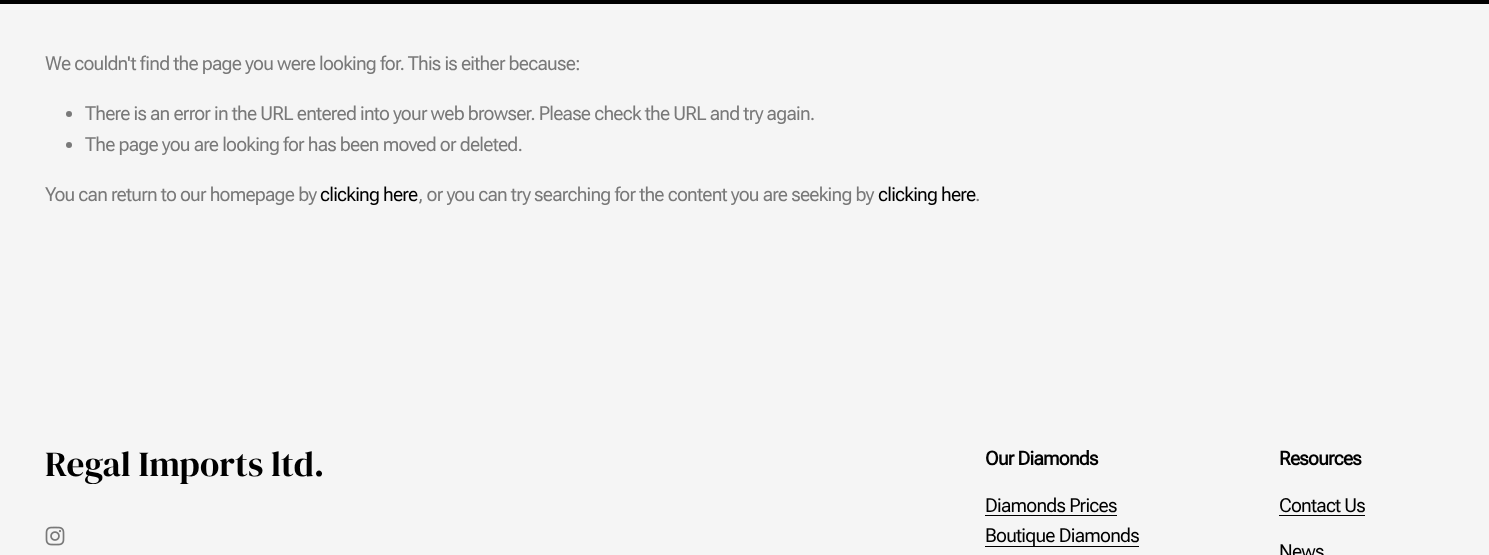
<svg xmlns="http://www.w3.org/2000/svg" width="1489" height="555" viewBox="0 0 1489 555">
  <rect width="100%" height="100%" fill="#f5f5f5"/>
  <path d="M0 0h1489v4H0z" fill="#000"/>
  <circle cx="69" cy="114" r="3" fill="#797979"/>
  <circle cx="69" cy="145" r="3" fill="#797979"/>
  <path d="M985 515h132v1H985z" fill="#000"/>
  <path d="M985 546h154v1H985z" fill="#000"/>
  <path d="M1279 515h86v1H1279z" fill="#000"/>
  <image x="45" y="526" width="20" height="20" href="img/1.png"/>
  <g font-family="Roboto Flex" font-size="19.2" letter-spacing="-0.77" fill="#797979">
    <text x="45" y="70">We couldn't find the page you were looking for. This is either because:</text>
    <text x="85" y="120">There is an error in the URL entered into your web browser. Please check the URL and try again.</text>
    <text x="85" y="151">The page you are looking for has been moved or deleted.</text>
    <text x="45" y="201">You can return to our homepage by</text>
  </g>
  <text x="320" y="201" font-family="Roboto Flex" font-size="19.2" letter-spacing="-0.77" fill="#000">clicking here</text>
  <text x="418" y="201" font-family="Roboto Flex" font-size="19.2" letter-spacing="-0.77" fill="#797979">, or you can try searching for the content you are seeking by</text>
  <text x="878" y="201" font-family="Roboto Flex" font-size="19.2" letter-spacing="-0.77" fill="#000">clicking here</text>
  <text x="975" y="201" font-family="Roboto Flex" font-size="19.2" letter-spacing="-0.77" fill="#797979">.</text>
  <text x="45" y="476" font-family="DM Serif Display" font-size="35.25" fill="#000">Regal Imports ltd.</text>
  <text x="985" y="465" font-family="Roboto Flex" font-size="19.2" font-weight="bold" letter-spacing="-0.77" fill="#000">Our Diamonds</text>
  <g font-family="Roboto Flex" font-size="19.2" letter-spacing="-0.77" fill="#000">
    <text x="985" y="512">Diamonds Prices</text>
    <text x="985" y="542">Boutique Diamonds</text>
  </g>
  <text x="1279" y="465" font-family="Roboto Flex" font-size="19.2" font-weight="bold" letter-spacing="-0.77" fill="#000">Resources</text>
  <g font-family="Roboto Flex" font-size="19.2" letter-spacing="-0.77" fill="#000">
    <text x="1279" y="512">Contact Us</text>
    <text x="1279" y="558">News</text>
  </g>
</svg>
